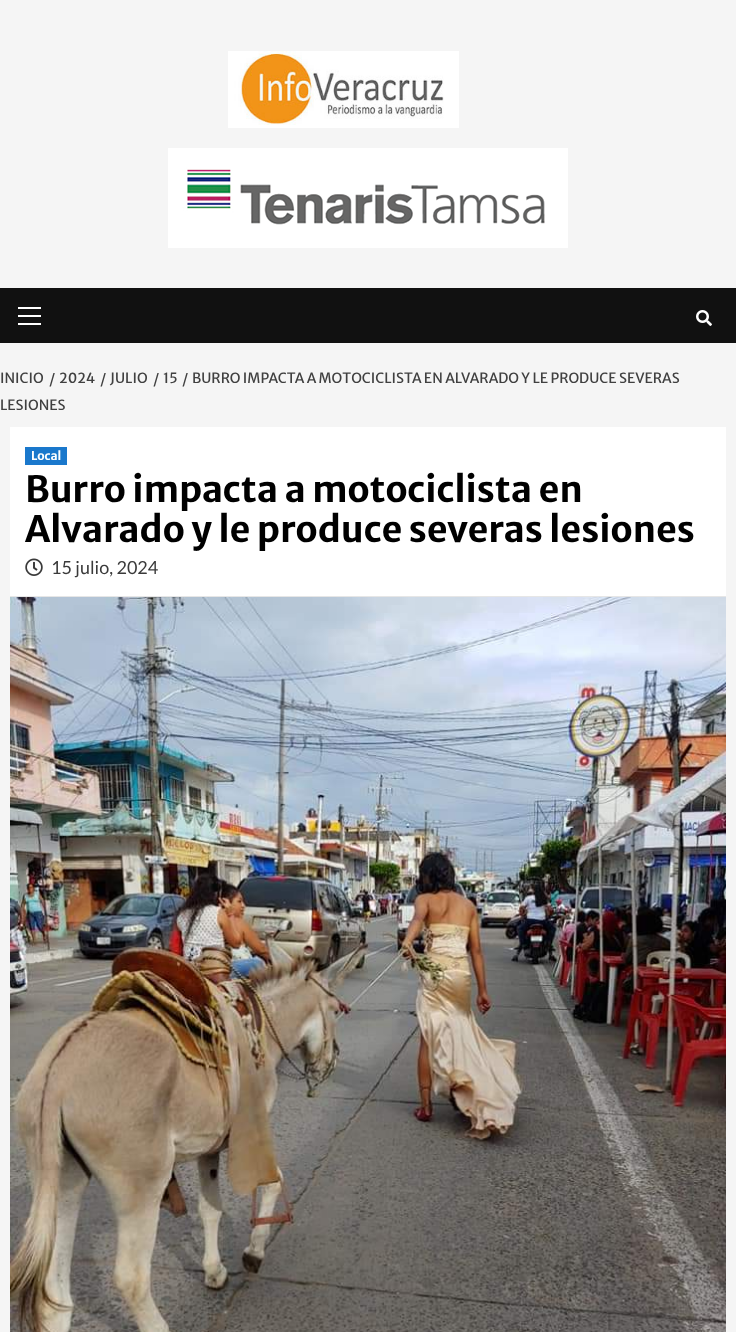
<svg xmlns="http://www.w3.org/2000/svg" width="736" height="1332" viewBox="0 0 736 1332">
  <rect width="100%" height="100%" fill="#f5f5f5"/>
  <image x="228" y="51" width="231" height="77" href="img/1.png"/>
  <image x="168" y="148" width="400" height="100" href="img/2.png"/>
  <path d="M0 288h736v55H0z" fill="#111"/>
  <path d="M18 315h23v2H18z" fill="#fff"/>
  <path d="M18 307h23v2H18z" fill="#fff"/>
  <path d="M18 323h23v2H18z" fill="#fff"/>
  <image x="696" y="310" width="16" height="16" href="img/3.png"/>
  <path d="M10 427h716v169H10z" fill="#fff"/>
  <path d="M10 596h716v1H10z" fill="#e6e6e6"/>
  <path d="M25 447h42v18H25z" fill="#1a78cc"/>
  <image x="25" y="558" width="18" height="18" href="img/4.png"/>
  <image x="10" y="597" width="716" height="735" href="img/5.png"/>
  <g font-family="Merriweather Sans" font-size="14" fill="#404040">
    <text x="0" y="383">INICIO</text>
    <text x="182" y="384">/</text>
    <text x="192" y="383">BURRO IMPACTA A MOTOCICLISTA EN ALVARADO Y LE PRODUCE SEVERAS</text>
    <text x="0" y="410">LESIONES</text>
    <text x="49" y="384">/</text>
    <text x="59" y="383">2024</text>
    <text x="100" y="384">/</text>
    <text x="110" y="383">JULIO</text>
    <text x="153" y="384">/</text>
    <text x="163" y="383">15</text>
  </g>
  <text x="31" y="460" font-family="Merriweather Sans" font-size="12" font-weight="bold" fill="#fff">Local</text>
  <g font-family="Merriweather Sans" font-size="36" font-weight="bold" fill="#000">
    <text x="25" y="502">Burro impacta a motociclista en</text>
    <text x="25" y="542">Alvarado y le produce severas lesiones</text>
  </g>
  <text x="51" y="574" font-family="Lato" font-size="18" fill="#3a3a3a">15 julio, 2024</text>
</svg>
